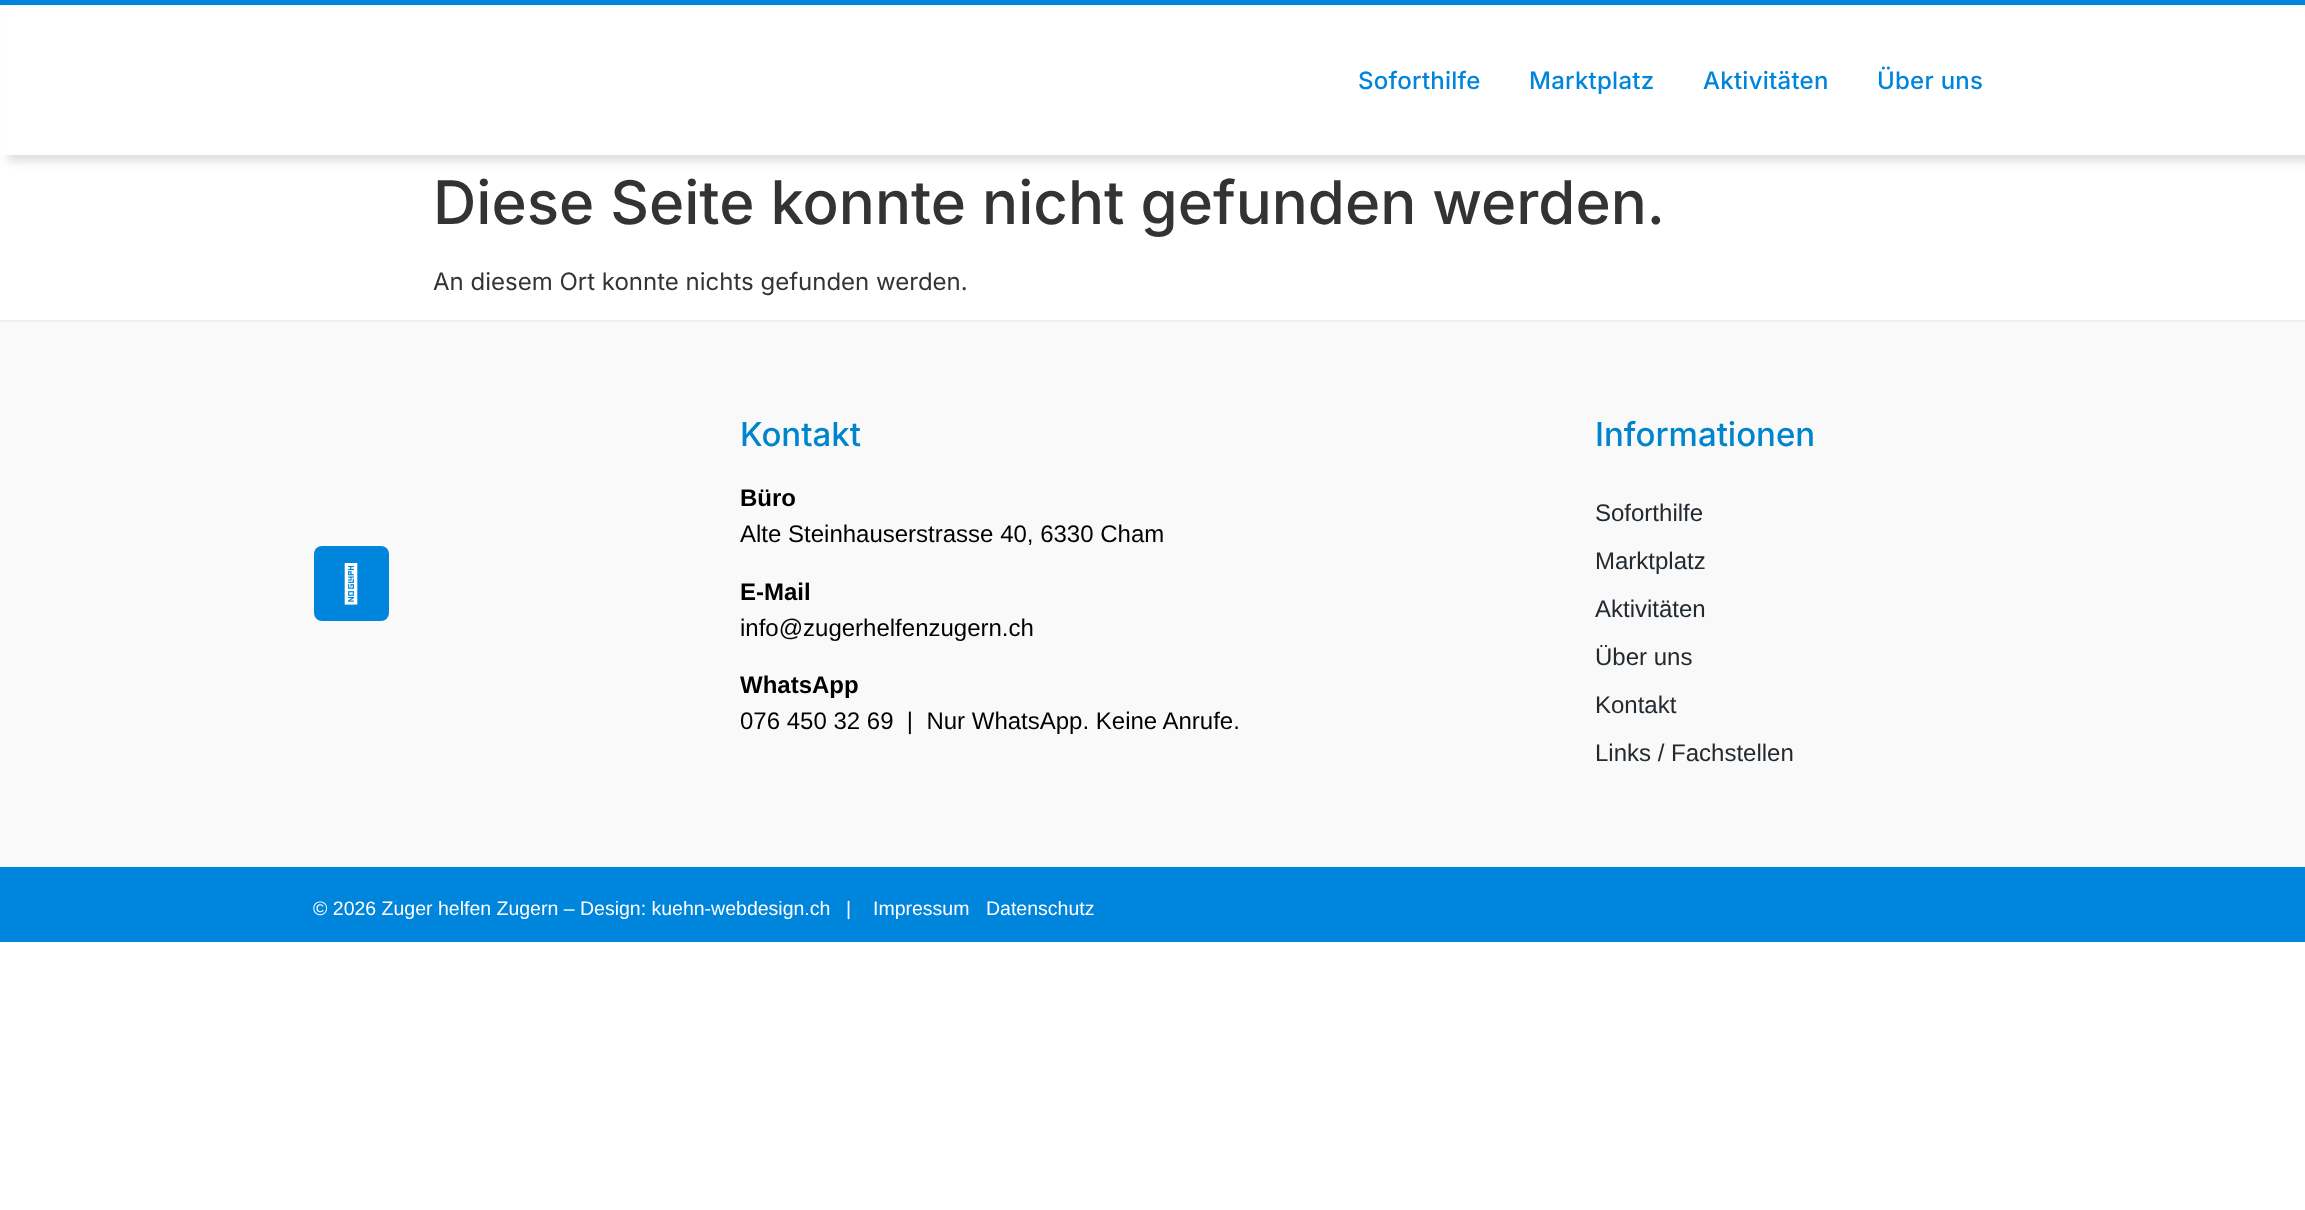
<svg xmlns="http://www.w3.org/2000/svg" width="2305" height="1210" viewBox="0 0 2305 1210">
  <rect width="100%" height="100%" fill="#fff"/>
  <path d="M0 0h2305v5H0z" fill="#0085dc"/>
  <path d="M8 12h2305v150H8z" fill="#0000001f" filter="blur(4.5px)"/>
  <path d="M2 6h2303v149H2z" fill="#fff"/>
  <path d="M0 322h2305v545H0z" fill="#f9f9f9"/>
  <path d="M0 320h2305v2H0z" fill="#efefef"/>
  <rect x="314" y="546" width="75" height="75" rx="8" fill="#0085dc"/>
  <image x="344" y="563" width="14" height="42" href="img/1.png"/>
  <path d="M0 867h2305v75H0z" fill="#0085dc"/>
  <g font-family="Inter" font-size="24" font-weight="500" letter-spacing="0.25" fill="#0085dc">
    <text x="1358" y="89">Soforthilfe</text>
    <text x="1529" y="89">Marktplatz</text>
    <text x="1703" y="89">Aktivitäten</text>
    <text x="1877" y="89">Über uns</text>
  </g>
  <text x="433" y="224" font-family="Inter" font-size="60" font-weight="500" fill="#333">Diese Seite konnte nicht gefunden werden.</text>
  <text x="433" y="290" font-family="Inter" font-size="24" fill="#333">An diesem Ort konnte nichts gefunden werden.</text>
  <text x="740" y="446" font-family="Inter" font-size="33" font-weight="500" fill="#0085cd">Kontakt</text>
  <text x="740" y="506" font-family="Liberation Sans" font-size="24" font-weight="bold" fill="#000">Büro</text>
  <text x="740" y="542" font-family="Liberation Sans" font-size="24" fill="#000">Alte Steinhauserstrasse 40, 6330 Cham</text>
  <text x="740" y="600" font-family="Liberation Sans" font-size="24" font-weight="bold" fill="#000">E-Mail</text>
  <text x="740" y="636" font-family="Liberation Sans" font-size="24" fill="#000">info@zugerhelfenzugern.ch</text>
  <text x="740" y="693" font-family="Liberation Sans" font-size="24" font-weight="bold" fill="#000">WhatsApp</text>
  <text x="740" y="729" font-family="Liberation Sans" font-size="24" fill="#000" xml:space="preserve">076 450 32 69  |  Nur WhatsApp. Keine Anrufe.</text>
  <text x="1595" y="446" font-family="Inter" font-size="33" font-weight="500" fill="#0085cd">Informationen</text>
  <g font-family="Liberation Sans" font-size="24" fill="#22292f">
    <text x="1595" y="521">Soforthilfe</text>
    <text x="1595" y="569">Marktplatz</text>
    <text x="1595" y="617">Aktivitäten</text>
    <text x="1595" y="665">Über uns</text>
    <text x="1595" y="713">Kontakt</text>
    <text x="1595" y="761">Links / Fachstellen</text>
  </g>
  <g font-family="Liberation Sans" font-size="19.5" fill="#fff">
    <text x="313" y="915">© 2026 Zuger helfen Zugern – Design: kuehn-webdesign.ch</text>
    <text x="846" y="915">|</text>
    <text x="873" y="915">Impressum</text>
    <text x="986" y="915">Datenschutz</text>
  </g>
</svg>
